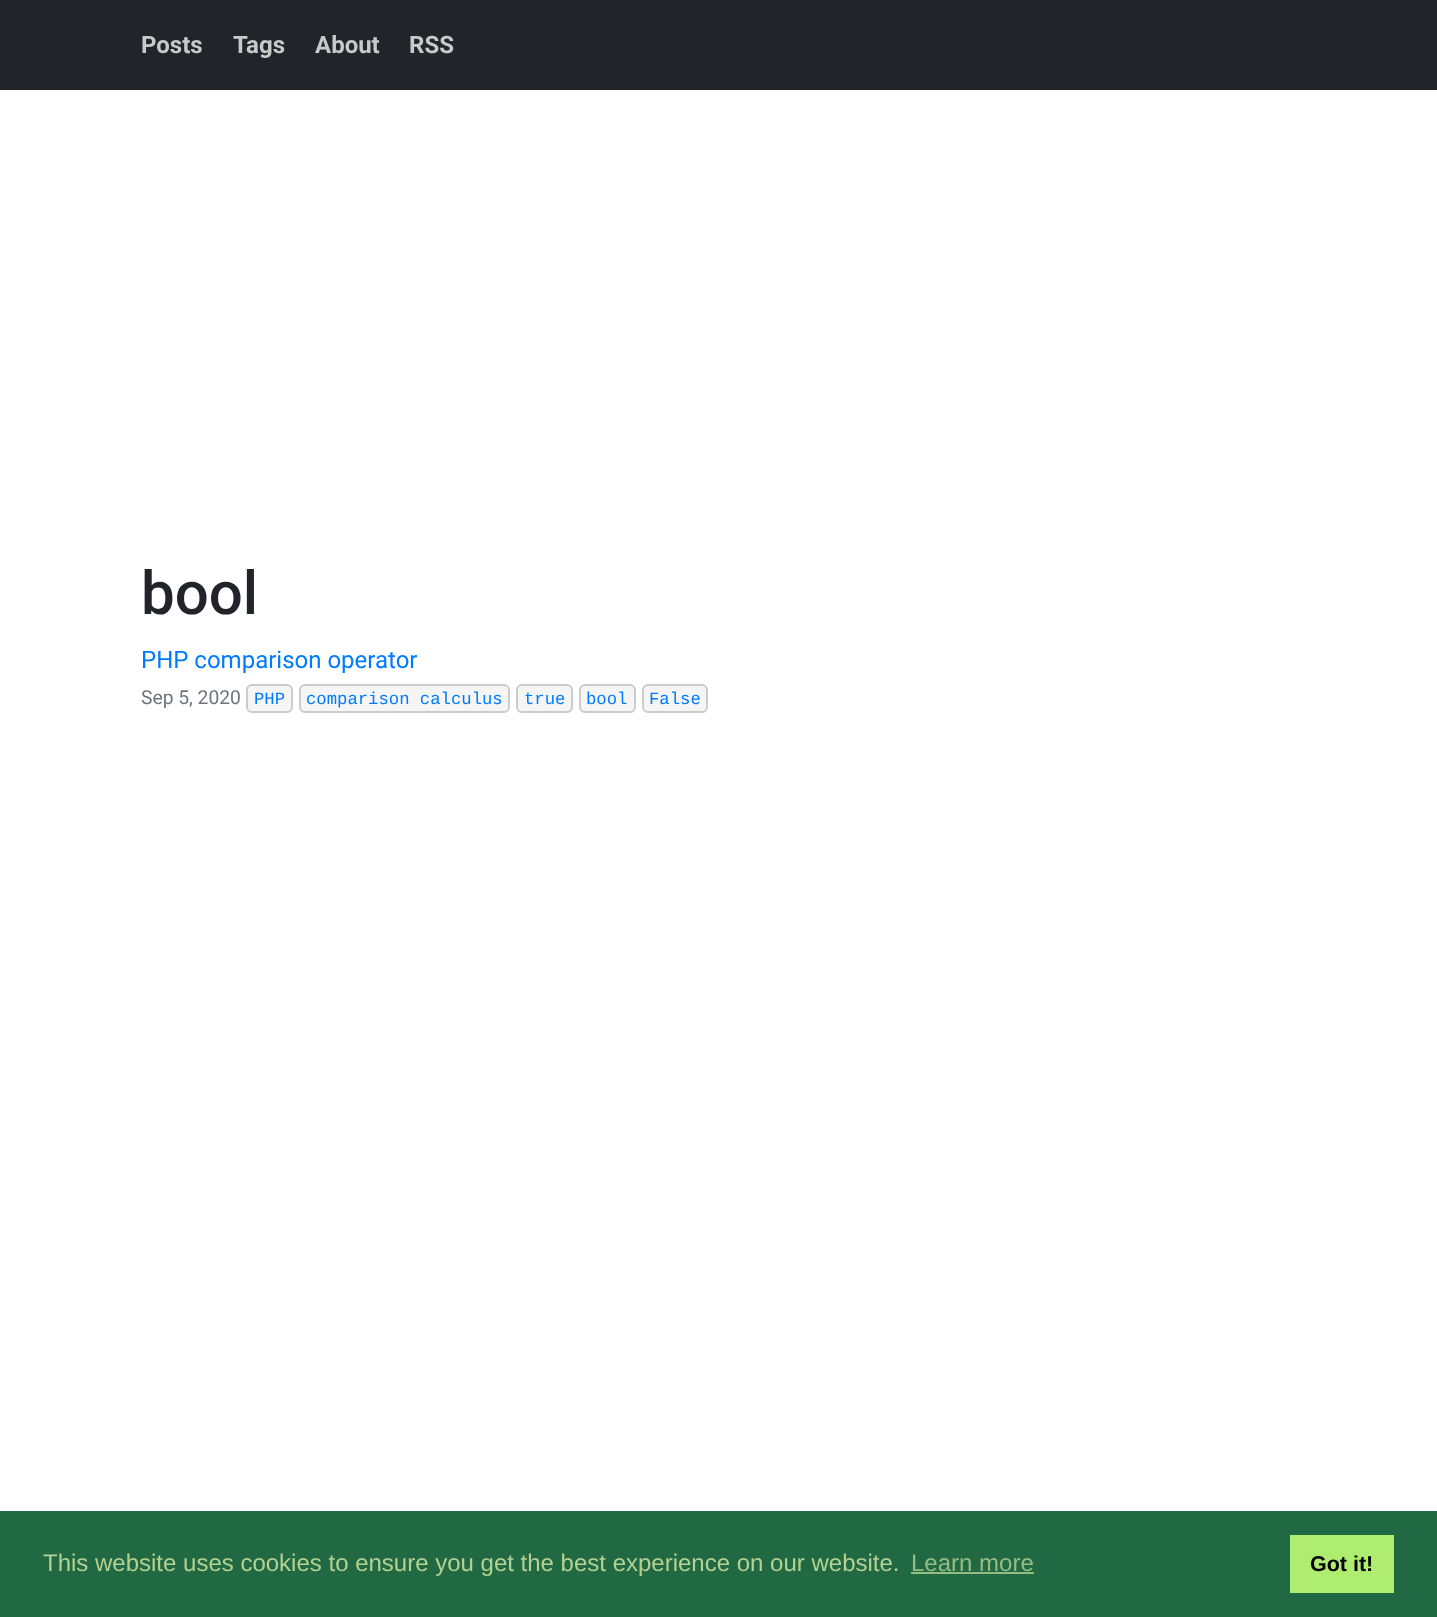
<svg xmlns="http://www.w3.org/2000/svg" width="1437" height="1617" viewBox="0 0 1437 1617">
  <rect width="100%" height="100%" fill="#fff"/>
  <path d="M0 0h1437v90H0z" fill="#212529"/>
  <rect x="247" y="685" width="45" height="27" rx="5" fill="#f5f5f5" stroke="#ccc" stroke-width="2"/>
  <rect x="300" y="685" width="209" height="27" rx="5" fill="#f5f5f5" stroke="#ccc" stroke-width="2"/>
  <rect x="517" y="685" width="55" height="27" rx="5" fill="#f5f5f5" stroke="#ccc" stroke-width="2"/>
  <rect x="580" y="685" width="55" height="27" rx="5" fill="#f5f5f5" stroke="#ccc" stroke-width="2"/>
  <rect x="643" y="685" width="64" height="27" rx="5" fill="#f5f5f5" stroke="#ccc" stroke-width="2"/>
  <path d="M0 1511h1437v106H0z" fill="#216942"/>
  <path d="M911 1572h123v2H911z" fill="#95bc82"/>
  <path d="M1290 1535h104v58H1290z" fill="#afed71"/>
  <g font-family="Roboto" font-size="24" font-weight="bold" fill="#c8c9ca">
    <text x="141" y="53">Posts</text>
    <text x="233" y="53">Tags</text>
    <text x="315" y="53">About</text>
    <text x="409" y="53">RSS</text>
  </g>
  <text x="141" y="614" font-family="Roboto" font-size="60" font-weight="500" fill="#212529">bool</text>
  <text x="141" y="668" font-family="Roboto" font-size="24" fill="#007bff">PHP comparison operator</text>
  <text x="141" y="704" font-family="Roboto" font-size="19.25" fill="#6c757d">Sep 5, 2020</text>
  <g font-family="Liberation Mono" font-size="17.25" fill="#007bff">
    <text x="254" y="704">PHP</text>
    <text x="306" y="704">comparison calculus</text>
    <text x="524" y="704">true</text>
    <text x="586" y="704">bool</text>
    <text x="649" y="704">False</text>
  </g>
  <text x="43" y="1571" font-family="Liberation Sans" font-size="24" fill="#b2d192">This website uses cookies to ensure you get the best experience on our website.</text>
  <text x="911" y="1571" font-family="Liberation Sans" font-size="24" fill="#95bc82">Learn more</text>
  <text x="1310" y="1571" font-family="Liberation Sans" font-size="21.5" font-weight="bold" fill="#000">Got it!</text>
</svg>
